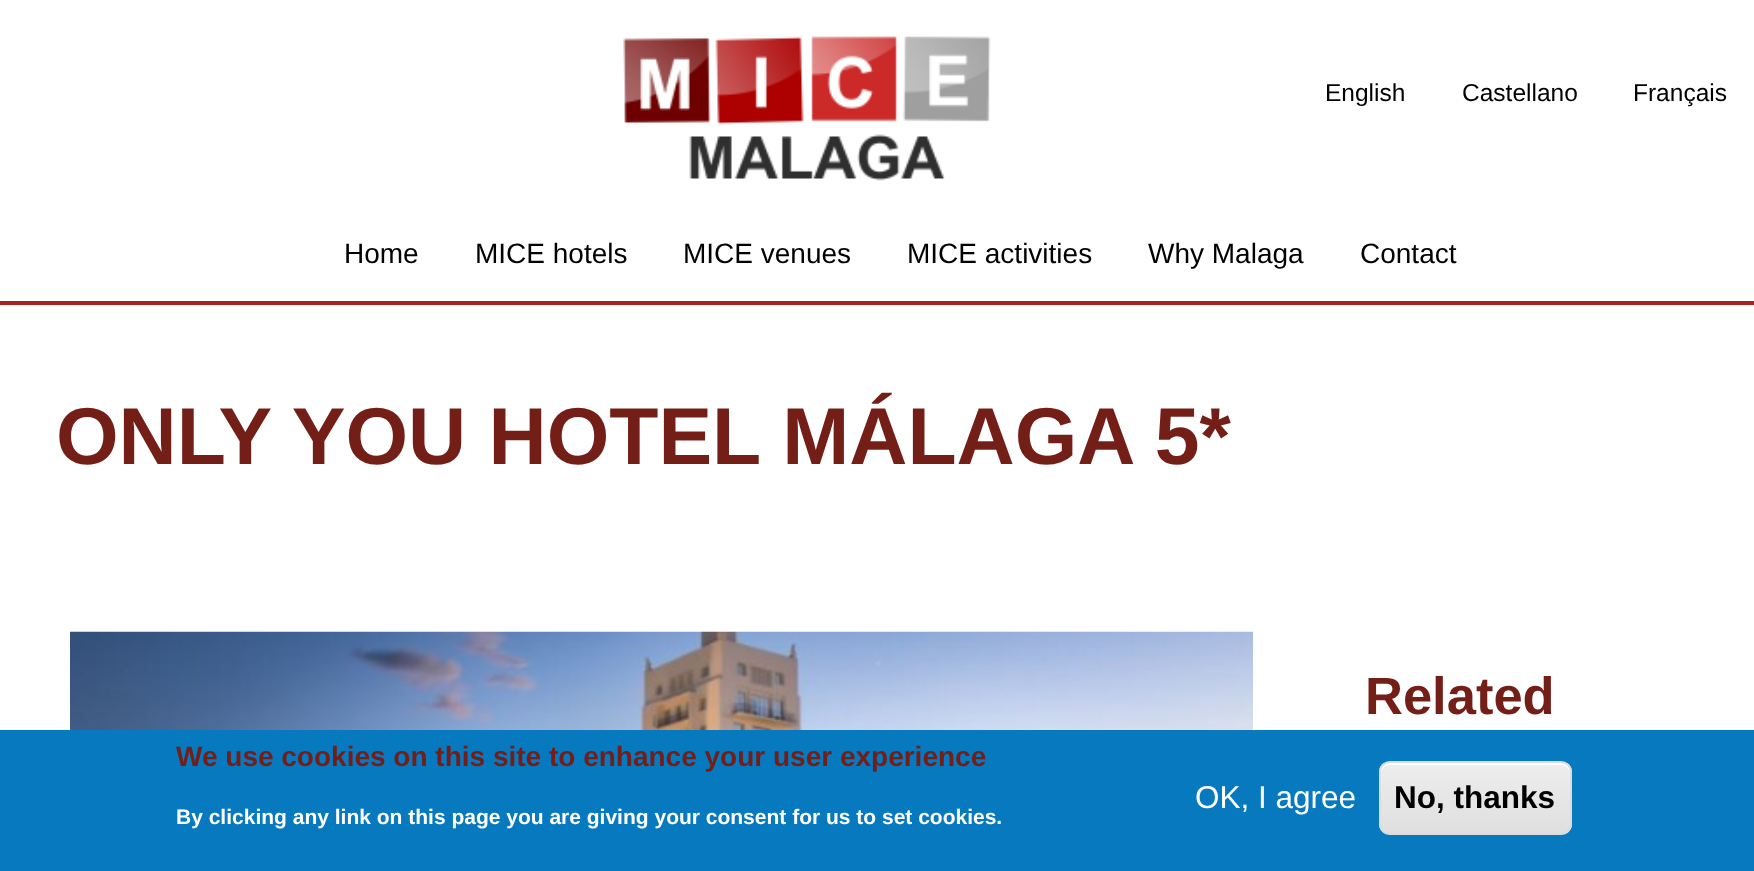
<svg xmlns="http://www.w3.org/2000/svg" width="1754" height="871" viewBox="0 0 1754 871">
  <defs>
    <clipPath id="clip1"><rect x="1379" y="761" width="193" height="74" rx="11"/></clipPath>
    <linearGradient id="g1" gradientUnits="userSpaceOnUse" x1="1475" y1="763" x2="1475" y2="833"><stop offset="0.05" stop-color="#ededed"/><stop offset="1" stop-color="#dfdfdf"/></linearGradient>
  </defs>
  <rect width="100%" height="100%" fill="#fff"/>
  <image x="623" y="36" width="368" height="145" href="img/1.png"/>
  <path d="M0 301h1754v4H0z" fill="#a8221e"/>
  <image x="70" y="631" width="1183" height="99" href="img/2.png"/>
  <path d="M0 730h1754v141H0z" fill="#0779bf"/>
  <g clip-path="url(#clip1)">
    <path d="M1379 763h193v70H1379z" fill="url(#g1)"/>
  </g>
  <path d="M1390 765H1561C1566 765 1570 769 1570 774V772C1570 767 1566 763 1561 763H1390C1385 763 1381 767 1381 772V774C1381 769 1385 765 1390 765Z" fill="#fff"/>
  <rect x="1380" y="762" width="191" height="72" rx="10" fill="none" stroke="#dcdcdc" stroke-width="2"/>
  <g font-family="Liberation Sans" font-size="24.5" fill="#000">
    <text x="1325" y="101">English</text>
    <text x="1462" y="101">Castellano</text>
    <text x="1633" y="101">Français</text>
  </g>
  <g font-family="Liberation Sans" font-size="28" fill="#000">
    <text x="344" y="263">Home</text>
    <text x="475" y="263">MICE hotels</text>
    <text x="683" y="263">MICE venues</text>
    <text x="907" y="263">MICE activities</text>
    <text x="1148" y="263">Why Malaga</text>
    <text x="1360" y="263">Contact</text>
  </g>
  <text x="56" y="464" font-family="Liberation Sans" font-size="80.5" font-weight="bold" fill="#741e18">ONLY YOU HOTEL MÁLAGA 5*</text>
  <text x="1365" y="714" font-family="Liberation Sans" font-size="52.5" font-weight="bold" fill="#741e18">Related</text>
  <text x="176" y="766" font-family="Liberation Sans" font-size="28" font-weight="bold" fill="#741e18">We use cookies on this site to enhance your user experience</text>
  <text x="176" y="824" font-family="Liberation Sans" font-size="21" font-weight="bold" fill="#fff">By clicking any link on this page you are giving your consent for us to set cookies.</text>
  <text x="1195" y="808" font-family="Liberation Sans" font-size="31.5" fill="#fff">OK, I agree</text>
  <text x="1394" y="808" font-family="Liberation Sans" font-size="31.5" font-weight="bold" fill="#000">No, thanks</text>
</svg>
